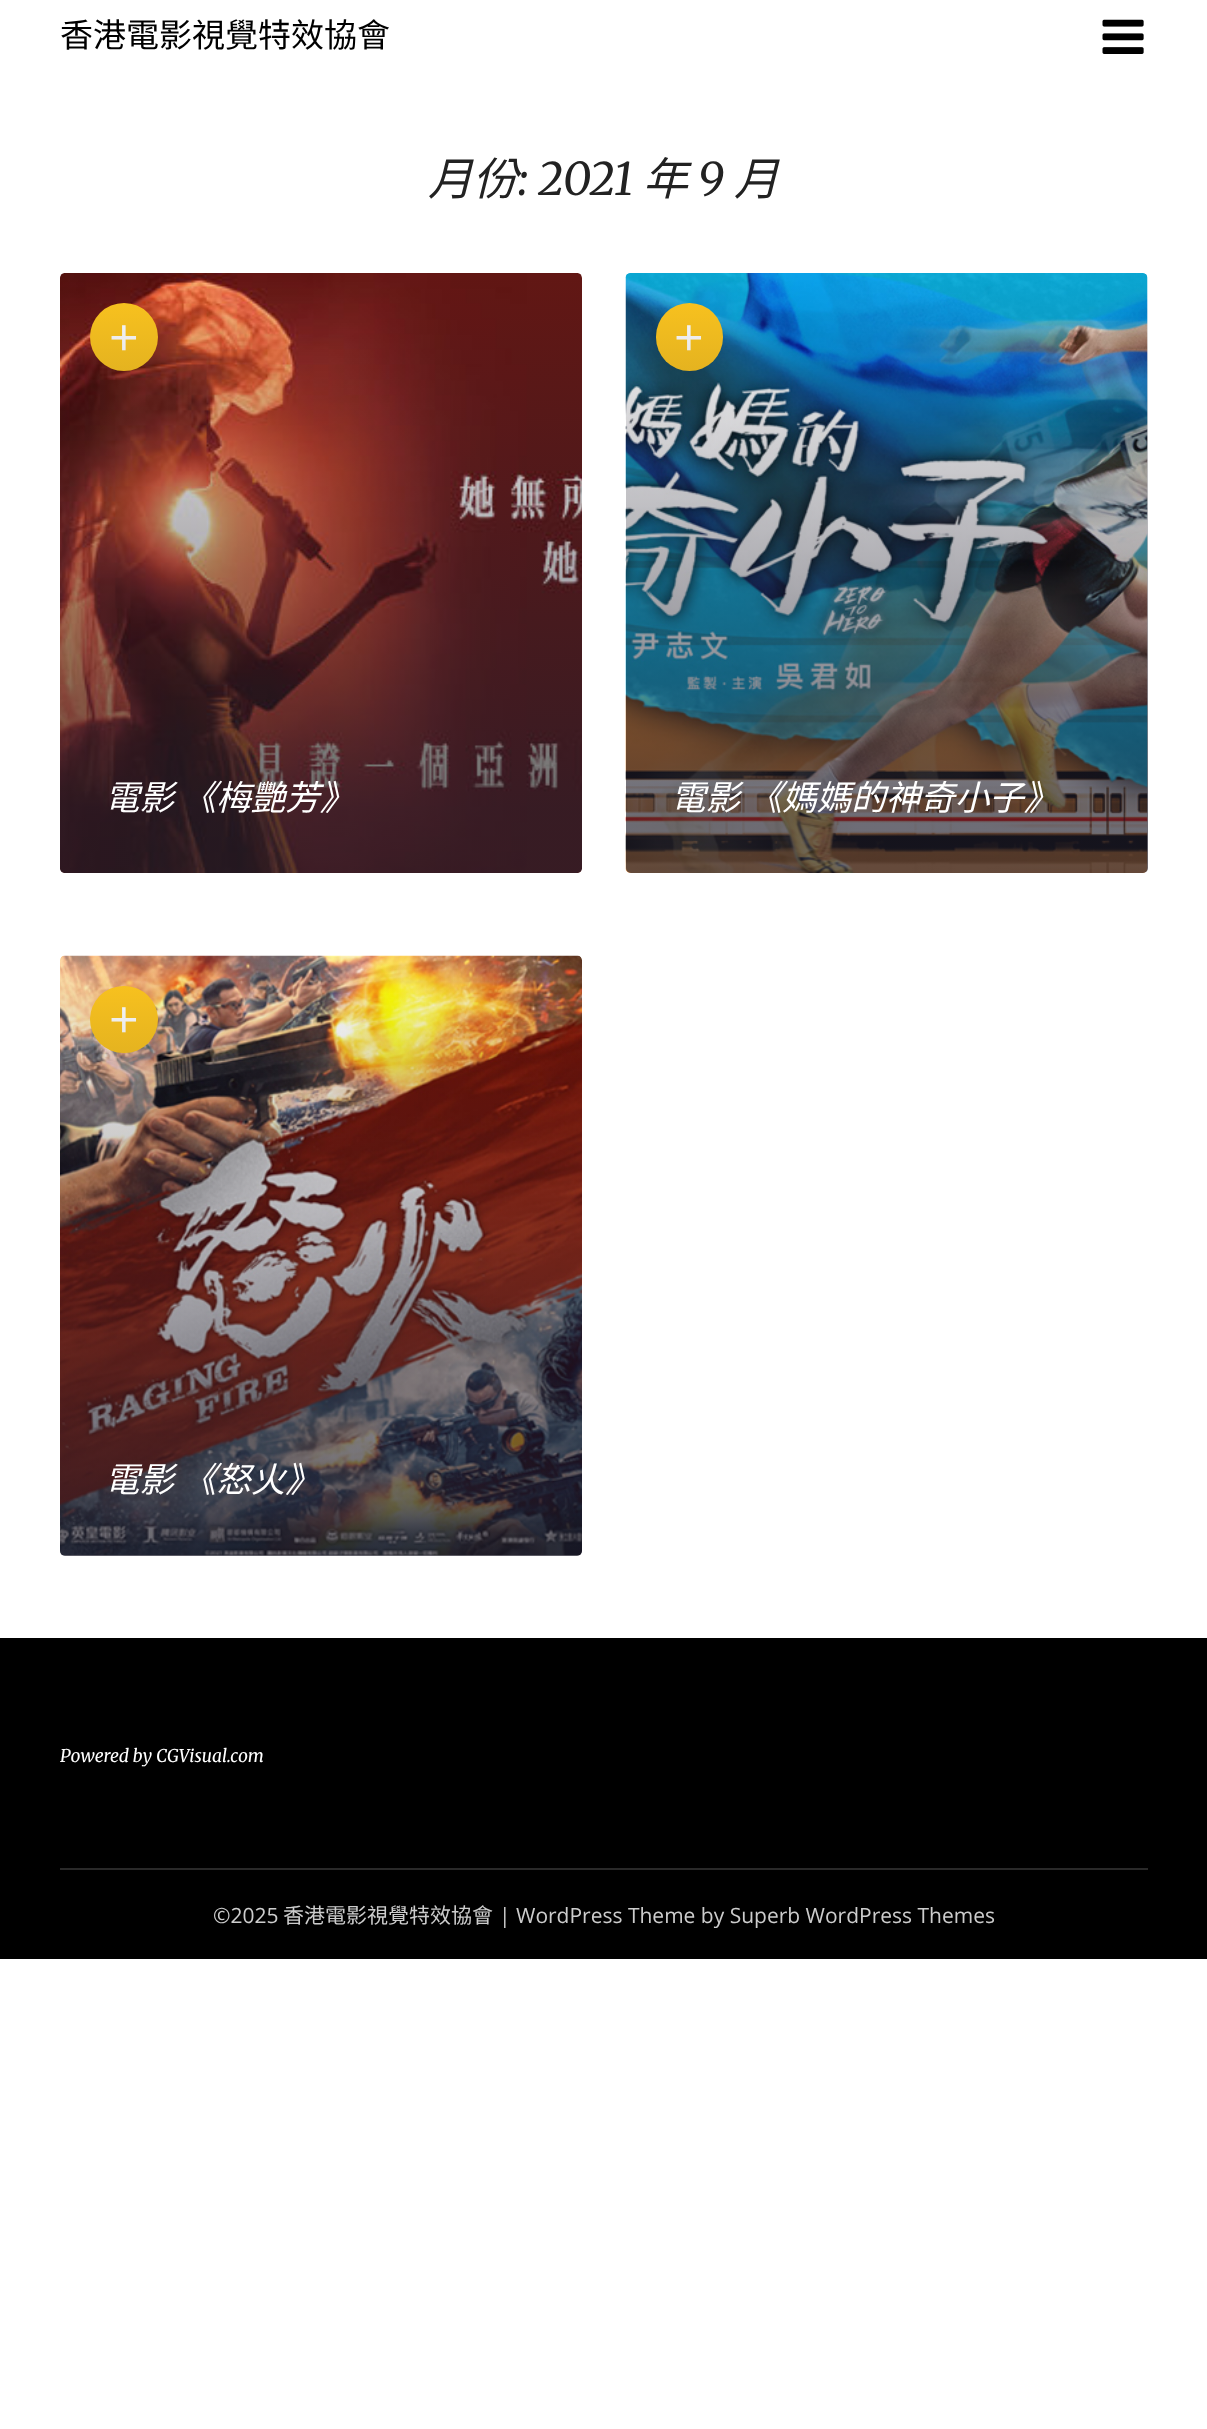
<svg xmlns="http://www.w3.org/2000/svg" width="1207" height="2429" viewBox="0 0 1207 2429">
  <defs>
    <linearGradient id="g1" gradientUnits="userSpaceOnUse" x1="321" y1="273" x2="321" y2="873"><stop offset="0" stop-color="#201e2c" stop-opacity="0"/><stop offset="0.88" stop-color="#201e2c" stop-opacity="0.64"/><stop offset="0.89" stop-color="#201e2c" stop-opacity="0.65"/></linearGradient>
    <linearGradient id="g2" gradientUnits="userSpaceOnUse" x1="887" y1="273" x2="887" y2="873"><stop offset="0" stop-color="#201e2c" stop-opacity="0"/><stop offset="0.88" stop-color="#201e2c" stop-opacity="0.64"/><stop offset="0.89" stop-color="#201e2c" stop-opacity="0.65"/></linearGradient>
    <linearGradient id="g3" gradientUnits="userSpaceOnUse" x1="321" y1="956" x2="321" y2="1556"><stop offset="0" stop-color="#201e2c" stop-opacity="0"/><stop offset="0.88" stop-color="#201e2c" stop-opacity="0.64"/><stop offset="0.89" stop-color="#201e2c" stop-opacity="0.65"/></linearGradient>
  </defs>
  <rect width="100%" height="100%" fill="#fff"/>
  <image x="1102" y="19" width="42" height="35" href="img/1.png"/>
  <image x="60" y="273" width="522" height="600" href="img/2.png"/>
  <circle cx="124" cy="337" r="34" fill="#ffc71e"/>
  <image x="625" y="273" width="523" height="600" href="img/3.png"/>
  <rect x="656" y="303" width="67" height="68" rx="33.5" fill="#ffc71e"/>
  <image x="60" y="955" width="522" height="601" href="img/4.png"/>
  <rect x="90" y="986" width="68" height="67" rx="33.5" fill="#ffc71e"/>
  <path d="M0 1638h1207v321H0z" fill="#000"/>
  <path d="M60 1868h1088v2H60z" fill="#292929"/>
  <text x="60" y="47" font-family="Noto Sans CJK TC" font-size="33" fill="#000">香港電影視覺特效協會</text>
  <text x="428" y="195" font-family="Noto Sans CJK TC" font-size="45" font-style="italic" fill="#222">月份</text>
  <text x="518" y="195" font-family="Merriweather" font-size="45" font-weight="300" font-style="italic" fill="#222">: 2021</text>
  <text x="643" y="195" font-family="Noto Sans CJK TC" font-size="45" font-style="italic" fill="#222">年</text>
  <text x="698" y="195" font-family="Merriweather" font-size="45" font-weight="300" font-style="italic" fill="#222">9</text>
  <text x="734" y="195" font-family="Noto Sans CJK TC" font-size="45" font-style="italic" fill="#222">月</text>
  <text x="109" y="356" font-family="Open Sans" font-size="52" fill="#fff">+</text>
  <rect x="60" y="273" width="522" height="600" rx="5" fill="url(#g1)"/>
  <text x="105" y="810" font-family="Noto Sans CJK TC" font-size="34.5" font-style="italic" fill="#fff">電影 《梅艷芳》</text>
  <text x="674" y="356" font-family="Open Sans" font-size="52" fill="#fff">+</text>
  <rect x="626" y="273" width="522" height="600" rx="5" fill="url(#g2)"/>
  <text x="671" y="810" font-family="Noto Sans CJK TC" font-size="34.5" font-style="italic" fill="#fff">電影 《媽媽的神奇小子》</text>
  <text x="109" y="1038" font-family="Open Sans" font-size="52" fill="#fff">+</text>
  <rect x="60" y="956" width="522" height="600" rx="5" fill="url(#g3)"/>
  <text x="105" y="1492" font-family="Noto Sans CJK TC" font-size="34.5" font-style="italic" fill="#fff">電影 《怒火》</text>
  <text x="60" y="1762" font-family="Merriweather" font-size="17.5" font-weight="300" font-style="italic" fill="#fff">Powered by CGVisual.com</text>
  <text x="213" y="1923" font-family="Open Sans" font-size="21" fill="#ccc">©2025</text>
  <text x="283" y="1923" font-family="Noto Sans CJK TC" font-size="21" fill="#ccc">香港電影視覺特效協會</text>
  <text x="499" y="1923" font-family="Open Sans" font-size="21" fill="#ccc">| WordPress Theme by Superb WordPress Themes</text>
</svg>
